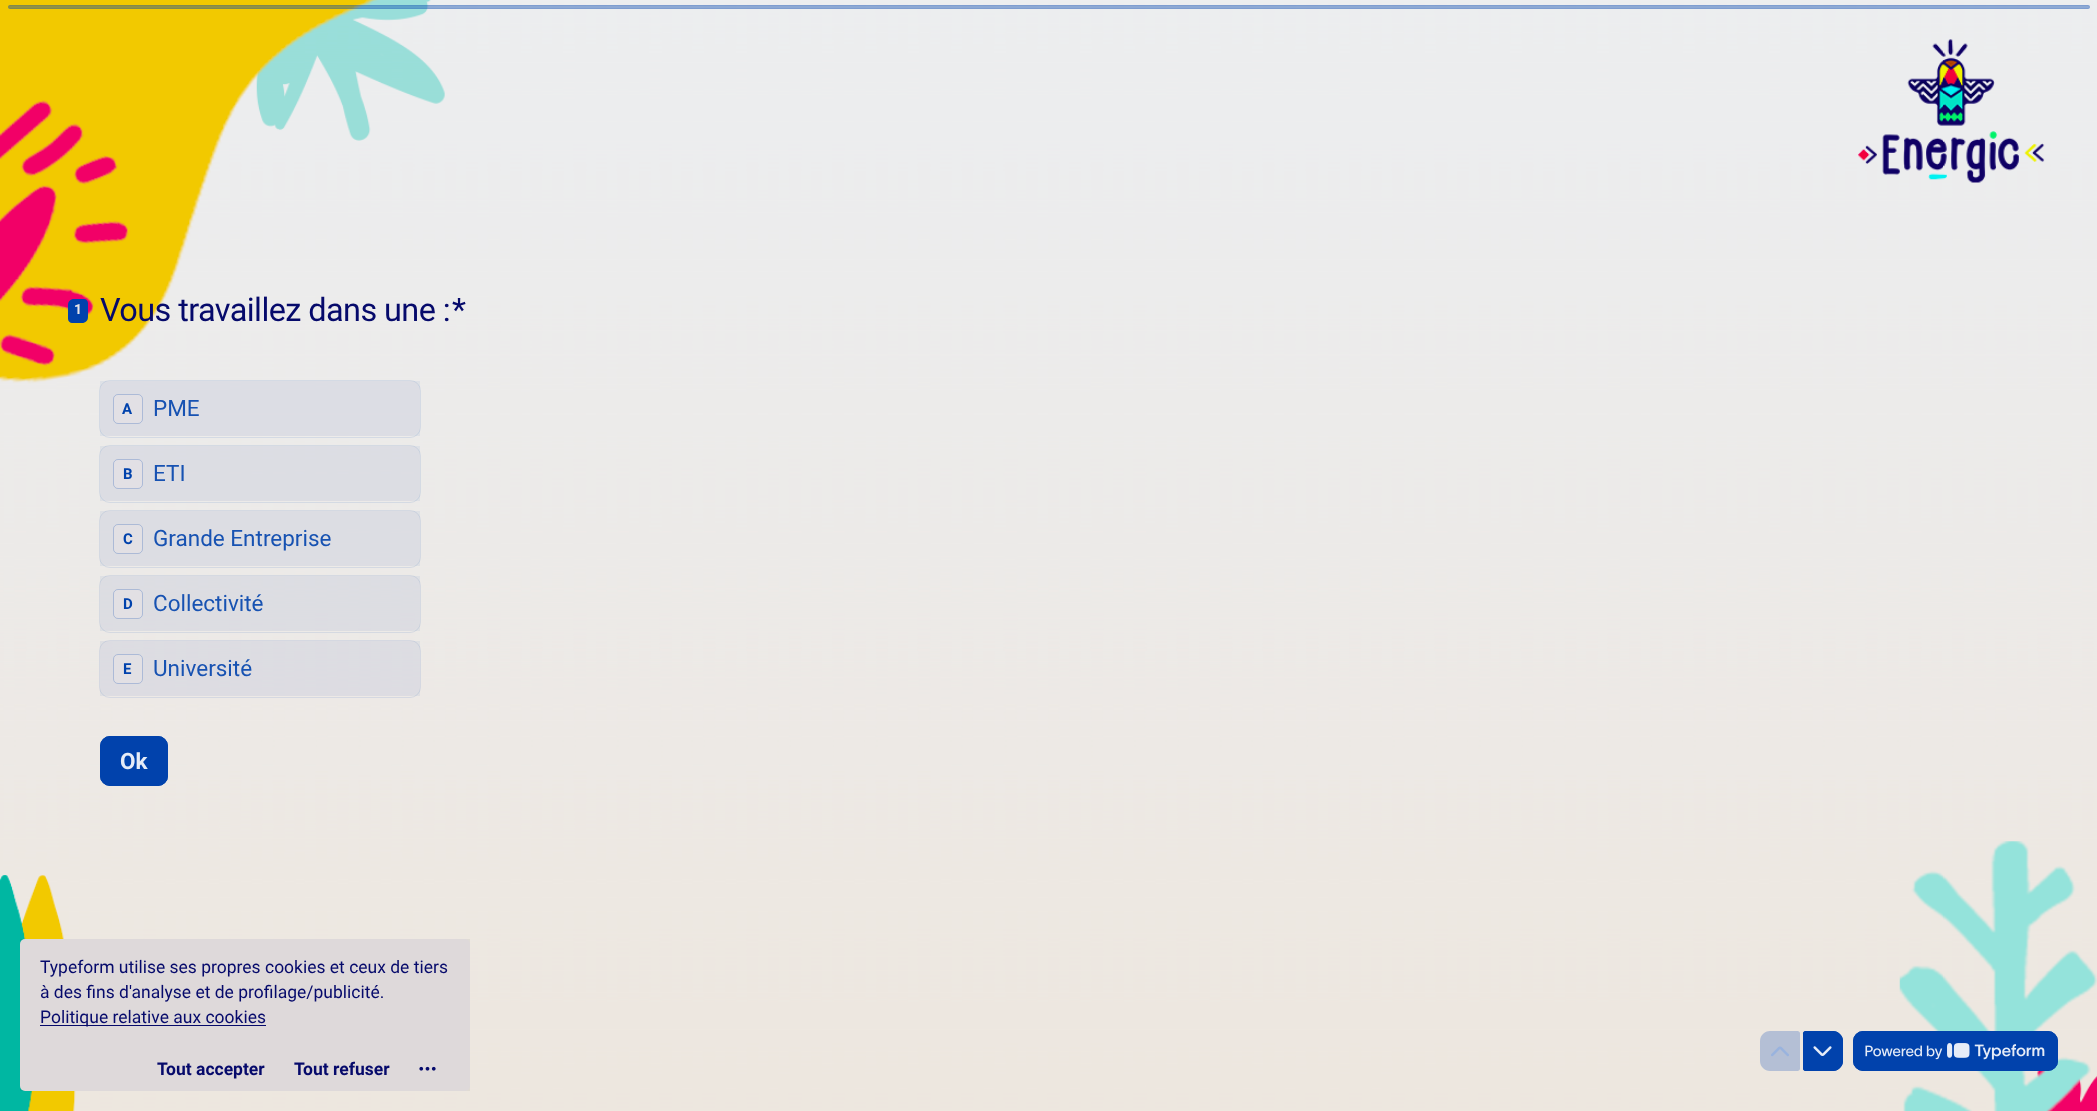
<svg xmlns="http://www.w3.org/2000/svg" width="2097" height="1111" viewBox="0 0 2097 1111">
  <rect width="100%" height="100%" fill="#fff"/>
  <image x="0" y="0" width="2097" height="1111" href="img/1.png"/>
  <rect x="8" y="5" width="2082" height="4" rx="2" fill="#0142ac66"/>
  <rect x="8.5" y="5.5" width="2081" height="3" rx="1.5" fill="none" stroke="#0142ac1a"/>
  <path d="M74 299H84C86 299 88 301 88 303V317C88 320.5 85.5 323 82 323H72C70 323 68 321 68 319V305C68 301.5 70.5 299 74 299Z" fill="#0142ac"/>
  <rect x="99.5" y="380.5" width="321" height="57" rx="10.5" fill="none" stroke="#d4dae4"/>
  <rect x="100" y="381" width="320" height="55" rx="10" fill="#eae5e699"/>
  <path d="M100 381h320v55H100z" fill="#0142ac0f"/>
  <rect x="113" y="394" width="30" height="30" rx="5" fill="#e2e0e5"/>
  <rect x="113.5" y="394.5" width="29" height="29" rx="4.5" fill="none" stroke="#0142ac3d"/>
  <rect x="99.5" y="445.5" width="321" height="57" rx="10.5" fill="none" stroke="#d4dae3"/>
  <rect x="100" y="446" width="320" height="55" rx="10" fill="#eae5e699"/>
  <path d="M100 446h320v55H100z" fill="#0142ac0f"/>
  <rect x="113" y="459" width="30" height="30" rx="5" fill="#e2e0e5"/>
  <rect x="113.5" y="459.5" width="29" height="29" rx="4.5" fill="none" stroke="#0142ac3d"/>
  <rect x="99.5" y="510.5" width="321" height="57" rx="10.5" fill="none" stroke="#d4d9e2"/>
  <rect x="100" y="511" width="320" height="55" rx="10" fill="#eae5e699"/>
  <path d="M100 511h320v55H100z" fill="#0142ac0f"/>
  <rect x="113" y="524" width="30" height="30" rx="5" fill="#e2e0e4"/>
  <rect x="113.5" y="524.5" width="29" height="29" rx="4.5" fill="none" stroke="#0142ac3d"/>
  <rect x="99.5" y="575.5" width="321" height="57" rx="10.5" fill="none" stroke="#d5d9e1"/>
  <rect x="100" y="576" width="320" height="55" rx="10" fill="#eae5e699"/>
  <path d="M100 576h320v55H100z" fill="#0142ac0f"/>
  <rect x="113" y="589" width="30" height="30" rx="5" fill="#e2e0e4"/>
  <rect x="113.5" y="589.5" width="29" height="29" rx="4.5" fill="none" stroke="#0142ac3d"/>
  <rect x="99.5" y="640.5" width="321" height="57" rx="10.5" fill="none" stroke="#d5d8e1"/>
  <rect x="100" y="641" width="320" height="55" rx="10" fill="#eae5e699"/>
  <path d="M100 641h320v55H100z" fill="#0142ac0f"/>
  <rect x="113.5" y="654.5" width="29" height="29" rx="4.5" fill="#e2e0e4" stroke="#acbad7"/>
  <rect x="100.5" y="736.5" width="67" height="49" rx="9.5" fill="none" stroke="#0142ac"/>
  <rect x="100" y="736" width="68" height="50" rx="10" fill="#0142ac"/>
  <path d="M1770 1031H1797.5C1799 1031 1800 1032 1800 1033.5V1068.5C1800 1070 1799 1071 1797.5 1071H1770C1764.5 1071 1760 1066.5 1760 1061V1041C1760 1035.5 1764.5 1031 1770 1031Z" fill="#b4bfd5"/>
  <image x="1771" y="1046" width="18" height="11" href="img/2.png"/>
  <path d="M1805.5 1031.5H1833C1838 1031.5 1842.5 1036 1842.5 1041V1061C1842.5 1066 1838 1070.5 1833 1070.5H1805.5C1804.5 1070.5 1803.5 1069.5 1803.5 1068.5V1033.5C1803.5 1032.5 1804.5 1031.5 1805.5 1031.5Z" fill="none" stroke="#0142ac"/>
  <path d="M1805.5 1031H1833C1838.5 1031 1843 1035.5 1843 1041V1061C1843 1066.5 1838.5 1071 1833 1071H1805.5C1804 1071 1803 1070 1803 1068.5V1033.5C1803 1032 1804 1031 1805.5 1031Z" fill="#0142ac"/>
  <image x="1813" y="1046" width="19" height="10" href="img/3.png"/>
  <rect x="1853.5" y="1031.5" width="204" height="39" rx="9.5" fill="none" stroke="#0142ac"/>
  <rect x="1853" y="1031" width="205" height="40" rx="10" fill="#0142ac"/>
  <image x="1865" y="1043" width="180" height="17" href="img/4.png"/>
  <rect x="20" y="939" width="450" height="152" rx="5" fill="#eae5e6"/>
  <path d="M20 939h450v152H20z" fill="#0000000d"/>
  <path d="M40 1025h226v1H40z" fill="#060a6b"/>
  <image x="419" y="1066" width="17" height="5" href="img/5.png"/>
  <text x="74" y="314" font-family="Roboto" font-size="14" font-weight="bold" fill="#eae5e6">1</text>
  <g font-family="Roboto" font-size="32.5" letter-spacing="-0.6" fill="#060a6b">
    <text x="100" y="321">Vous travaillez dans une :</text>
    <text x="452" y="321">*</text>
  </g>
  <text x="122" y="414" font-family="Roboto" font-size="15" font-weight="bold" fill="#0142ac">A</text>
  <text x="153" y="416" font-family="Roboto" font-size="22.5" fill="#1752b2">PME</text>
  <text x="123" y="479" font-family="Roboto" font-size="15" font-weight="bold" fill="#0142ac">B</text>
  <text x="153" y="481" font-family="Roboto" font-size="22.5" fill="#1752b2">ETI</text>
  <text x="123" y="544" font-family="Roboto" font-size="15" font-weight="bold" fill="#0142ac">C</text>
  <text x="153" y="546" font-family="Roboto" font-size="22.5" fill="#1752b2">Grande Entreprise</text>
  <text x="123" y="609" font-family="Roboto" font-size="15" font-weight="bold" fill="#0142ac">D</text>
  <text x="153" y="611" font-family="Roboto" font-size="22.5" fill="#1752b2">Collectivité</text>
  <text x="123" y="674" font-family="Roboto" font-size="15" font-weight="bold" fill="#0142ac">E</text>
  <text x="153" y="676" font-family="Roboto" font-size="22.5" fill="#1752b2">Université</text>
  <text x="120" y="769" font-family="Roboto" font-size="22.5" font-weight="bold" fill="#e6ecf7">Ok</text>
  <g font-family="Roboto" font-size="17.5" fill="#060a6b">
    <text x="40" y="973">Typeform utilise ses propres cookies et ceux de tiers</text>
    <text x="40" y="998">à des fins d'analyse et de profilage/publicité.</text>
    <text x="40" y="1023">Politique relative aux cookies</text>
  </g>
  <g font-family="Roboto" font-size="17.5" font-weight="bold" fill="#060a6b">
    <text x="157" y="1075">Tout accepter</text>
    <text x="294" y="1075">Tout refuser</text>
  </g>
</svg>
